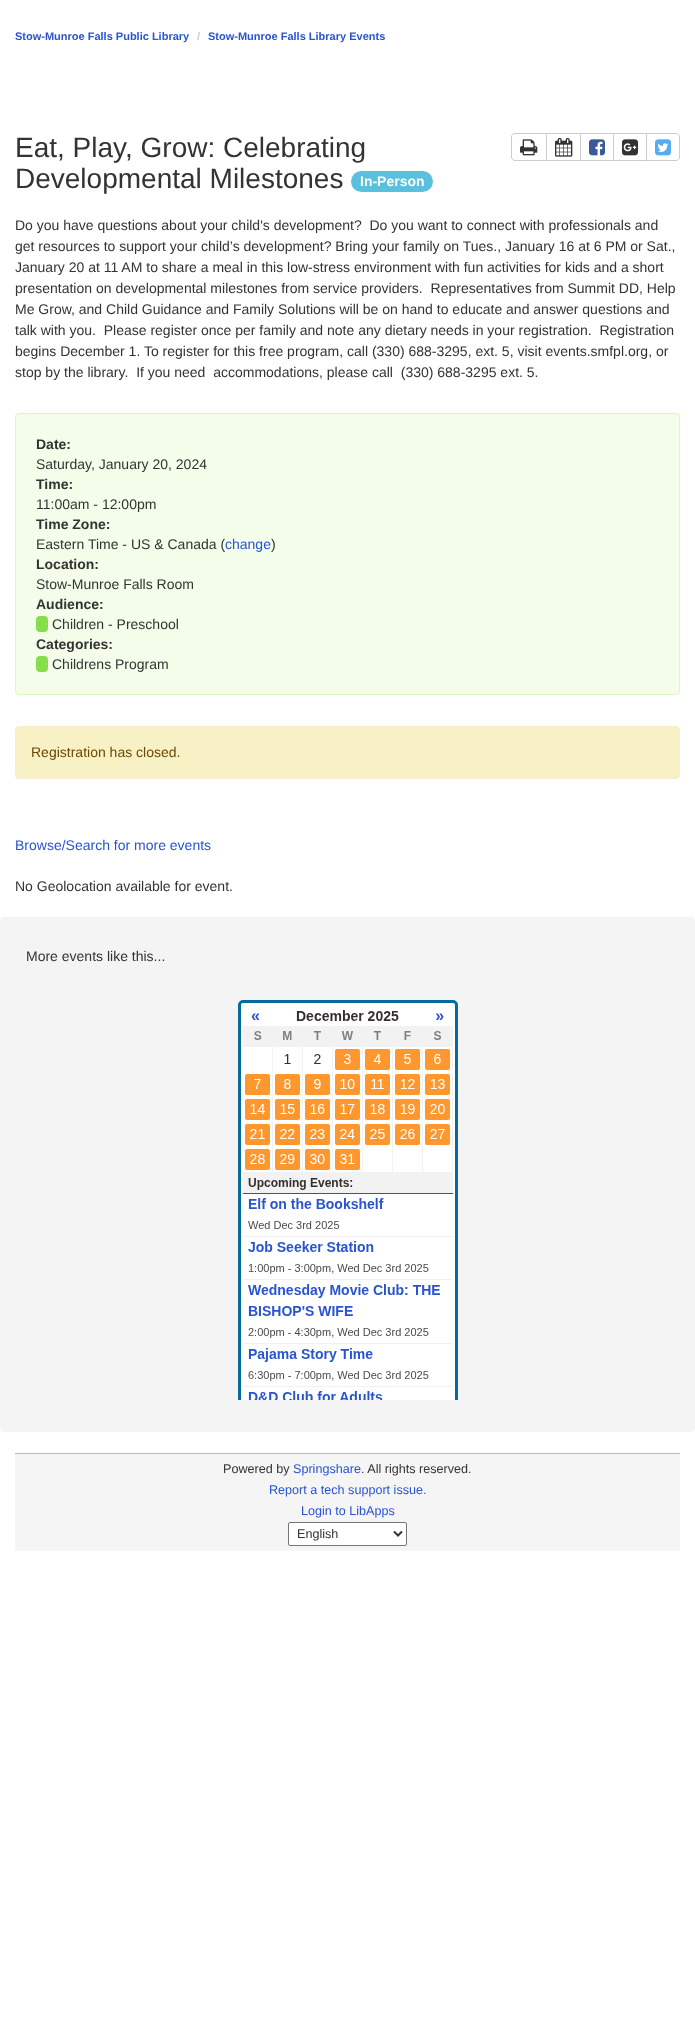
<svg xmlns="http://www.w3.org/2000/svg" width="695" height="2022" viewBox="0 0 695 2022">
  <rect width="100%" height="100%" fill="#fff"/>
  <rect x="351" y="171" width="82" height="21" rx="10.5" fill="#5bc0de"/>
  <path d="M515 133.5H546.5V160.5H515C513 160.5 511.5 159 511.5 157V137C511.5 135 513 133.5 515 133.5Z" fill="none" stroke="#ccc"/>
  <image x="520" y="139" width="18" height="17" href="img/1.png"/>
  <path d="M546.5 133.5h34v27H546.5z" fill="none" stroke="#ccc"/>
  <image x="555" y="138" width="18" height="19" href="img/2.png"/>
  <path d="M580.5 133.5h33v27H580.5z" fill="none" stroke="#ccc"/>
  <image x="589" y="139" width="16" height="17" href="img/3.png"/>
  <path d="M613.5 133.5h33v27H613.5z" fill="none" stroke="#ccc"/>
  <image x="622" y="139" width="16" height="17" href="img/4.png"/>
  <path d="M646.5 133.5H676C678 133.5 679.5 135 679.5 137V157C679.5 159 678 160.5 676 160.5H646.5Z" fill="#fff" stroke="#ccc"/>
  <image x="655" y="139" width="16" height="17" href="img/5.png"/>
  <rect x="15.5" y="413.5" width="664" height="281" rx="3.5" fill="#f3fdea" stroke="#daf9c2"/>
  <rect x="36" y="616" width="12" height="16" rx="4" fill="#86de4c"/>
  <rect x="36" y="656" width="12" height="16" rx="4" fill="#86de4c"/>
  <rect x="15.5" y="726.5" width="664" height="52" rx="3.5" fill="#f9f1c6" stroke="#faebcc"/>
  <rect y="917" width="695" height="515" rx="4" fill="#f4f4f4"/>
  <image x="238" y="1000" width="220" height="400" href="img/6.png"/>
  <path d="M15 1454h665v97H15z" fill="#f5f5f5"/>
  <path d="M15 1453h665v1H15z" fill="#bbb"/>
  <rect x="288.5" y="1522.5" width="118" height="23" rx="1.5" fill="#fff" stroke="#767676"/>
  <path d="M394 1531.5L398 1535.5L402 1531.5" fill="none" stroke="#333" stroke-width="2"/>
  <text x="15" y="40" font-family="Liberation Sans" font-size="11" font-weight="bold" fill="#2954d1">Stow-Munroe Falls Public Library</text>
  <text x="197" y="40" font-family="Liberation Sans" font-size="11" font-weight="bold" fill="#ccc">/</text>
  <text x="208" y="40" font-family="Liberation Sans" font-size="11" font-weight="bold" fill="#2954d1">Stow-Munroe Falls Library Events</text>
  <g font-family="Liberation Sans" font-size="28" fill="#333">
    <text x="15" y="157">Eat, Play, Grow: Celebrating</text>
    <text x="15" y="188">Developmental Milestones</text>
  </g>
  <text x="360" y="186" font-family="Liberation Sans" font-size="14" font-weight="bold" fill="#fff">In-Person</text>
  <g font-family="Liberation Sans" font-size="14" fill="#333">
    <text x="15" y="230" xml:space="preserve">Do you have questions about your child's development?  Do you want to connect with professionals and</text>
    <text x="15" y="251">get resources to support your child’s development? Bring your family on Tues., January 16 at 6 PM or Sat.,</text>
    <text x="15" y="272">January 20 at 11 AM to share a meal in this low-stress environment with fun activities for kids and a short</text>
    <text x="15" y="293" xml:space="preserve">presentation on developmental milestones from service providers.  Representatives from Summit DD, Help</text>
    <text x="15" y="314">Me Grow, and Child Guidance and Family Solutions will be on hand to educate and answer questions and</text>
    <text x="15" y="335" xml:space="preserve">talk with you.  Please register once per family and note any dietary needs in your registration.  Registration</text>
    <text x="15" y="356">begins December 1. To register for this free program, call (330) 688-3295, ext. 5, visit events.smfpl.org, or</text>
    <text x="15" y="377" xml:space="preserve">stop by the library.  If you need  accommodations, please call  (330) 688-3295 ext. 5.</text>
  </g>
  <text x="36" y="449" font-family="Liberation Sans" font-size="14" font-weight="bold" fill="#333">Date:</text>
  <text x="36" y="469" font-family="Liberation Sans" font-size="14" fill="#333">Saturday, January 20, 2024</text>
  <text x="36" y="489" font-family="Liberation Sans" font-size="14" font-weight="bold" fill="#333">Time:</text>
  <text x="36" y="509" font-family="Liberation Sans" font-size="14" fill="#333">11:00am - 12:00pm</text>
  <text x="36" y="529" font-family="Liberation Sans" font-size="14" font-weight="bold" fill="#333">Time Zone:</text>
  <text x="36" y="549" font-family="Liberation Sans" font-size="14" fill="#333">Eastern Time - US &amp; Canada (</text>
  <text x="225" y="549" font-family="Liberation Sans" font-size="14" fill="#2954d1">change</text>
  <text x="271" y="549" font-family="Liberation Sans" font-size="14" fill="#333">)</text>
  <text x="36" y="569" font-family="Liberation Sans" font-size="14" font-weight="bold" fill="#333">Location:</text>
  <text x="36" y="589" font-family="Liberation Sans" font-size="14" fill="#333">Stow-Munroe Falls Room</text>
  <text x="36" y="609" font-family="Liberation Sans" font-size="14" font-weight="bold" fill="#333">Audience:</text>
  <text x="52" y="629" font-family="Liberation Sans" font-size="14" fill="#333">Children - Preschool</text>
  <text x="36" y="649" font-family="Liberation Sans" font-size="14" font-weight="bold" fill="#333">Categories:</text>
  <text x="52" y="669" font-family="Liberation Sans" font-size="14" fill="#333">Childrens Program</text>
  <text x="31" y="757" font-family="Liberation Sans" font-size="14" fill="#6c4a00">Registration has closed.</text>
  <text x="15" y="850" font-family="Liberation Sans" font-size="14" fill="#2954d1">Browse/Search for more events</text>
  <g font-family="Liberation Sans" font-size="14" fill="#333">
    <text x="15" y="891">No Geolocation available for event.</text>
    <text x="26" y="961">More events like this...</text>
  </g>
  <text x="223" y="1473" font-family="Liberation Sans" font-size="12.6" fill="#333">Powered by</text>
  <text x="293" y="1473" font-family="Liberation Sans" font-size="12.6" fill="#2954d1">Springshare</text>
  <text x="361" y="1473" font-family="Liberation Sans" font-size="12.6" fill="#333">. All rights reserved.</text>
  <g font-family="Liberation Sans" font-size="12.6" fill="#2954d1">
    <text x="269" y="1494">Report a tech support issue.</text>
    <text x="301" y="1515">Login to LibApps</text>
  </g>
  <text x="297" y="1538" font-family="Liberation Sans" font-size="12.6" fill="#333">English</text>
</svg>
